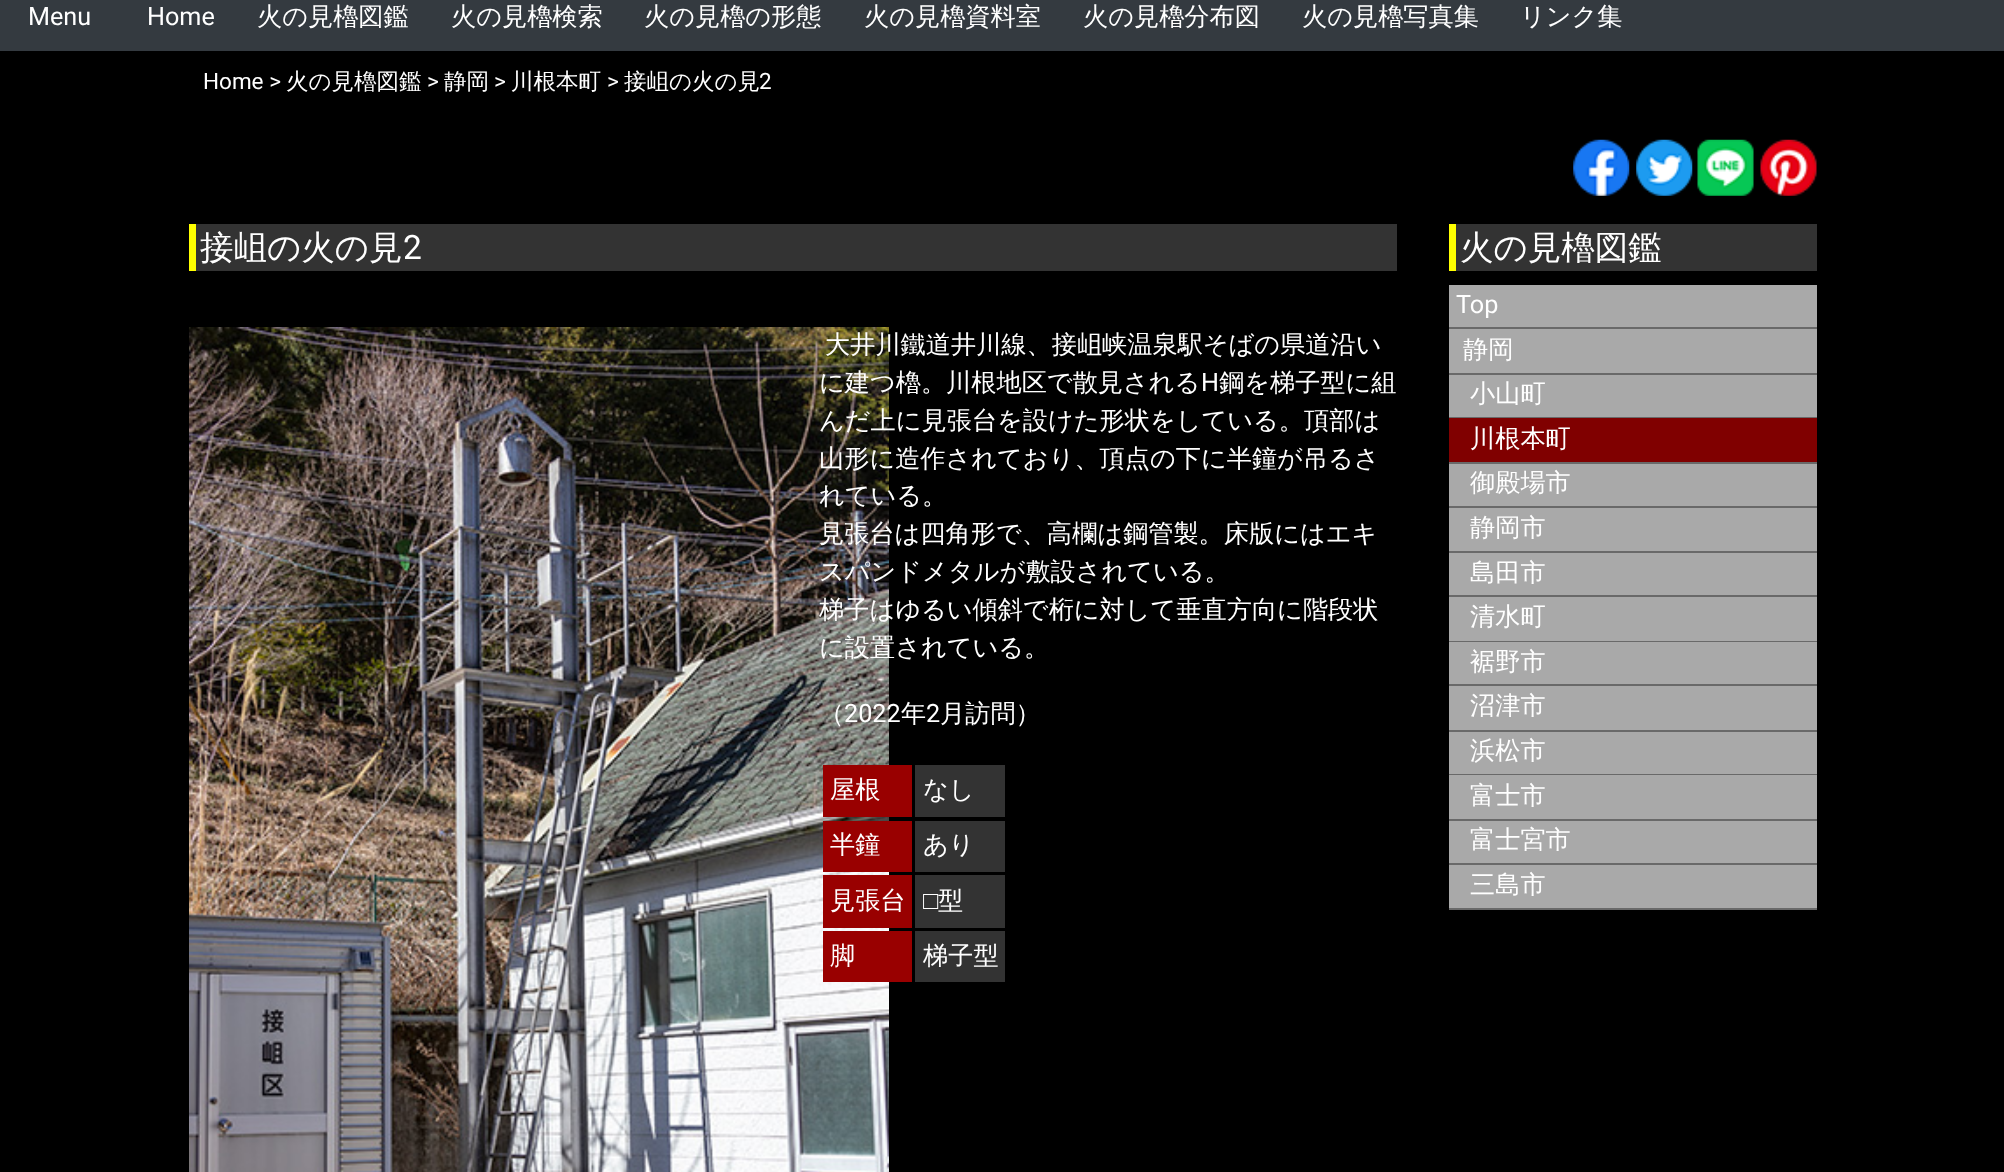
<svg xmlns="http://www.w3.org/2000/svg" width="2004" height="1172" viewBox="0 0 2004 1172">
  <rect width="100%" height="100%" fill="#000"/>
  <path d="M0 0h2004v51H0z" fill="#343a40"/>
  <image x="1573" y="139" width="57" height="57" href="img/1.png"/>
  <image x="1636" y="139" width="57" height="57" href="img/2.png"/>
  <image x="1697" y="139" width="57" height="57" href="img/3.png"/>
  <image x="1760" y="139" width="57" height="57" href="img/4.png"/>
  <path d="M196 224h1201v47H196z" fill="#333"/>
  <path d="M189 224h7v47H189z" fill="#ff0"/>
  <image x="189" y="327" width="700" height="845" href="img/5.png"/>
  <path d="M823 765h89v52H823z" fill="#900"/>
  <path d="M915 765h90v52H915z" fill="#333"/>
  <path d="M823 821h89v51H823z" fill="#900"/>
  <path d="M915 821h90v51H915z" fill="#333"/>
  <path d="M823 875h89v53H823z" fill="#900"/>
  <path d="M915 875h90v53H915z" fill="#333"/>
  <path d="M823 931h89v51H823z" fill="#900"/>
  <path d="M915 931h90v51H915z" fill="#333"/>
  <path d="M1456 224h361v47H1456z" fill="#333"/>
  <path d="M1449 224h7v47H1449z" fill="#ff0"/>
  <path d="M1449 285h368v42H1449z" fill="#a9a9a9"/>
  <path d="M1449 327h368v2H1449z" fill="#696969"/>
  <path d="M1449 329h368v44H1449z" fill="#a9a9a9"/>
  <path d="M1449 373h368v2H1449z" fill="#696969"/>
  <path d="M1449 375h368v42H1449z" fill="#a9a9a9"/>
  <path d="M1449 417h368v1H1449z" fill="#696969"/>
  <path d="M1449 418h368v44H1449z" fill="#800000"/>
  <path d="M1449 462h368v2H1449z" fill="#696969"/>
  <path d="M1449 464h368v42H1449z" fill="#a9a9a9"/>
  <path d="M1449 506h368v2H1449z" fill="#696969"/>
  <path d="M1449 508h368v43H1449z" fill="#a9a9a9"/>
  <path d="M1449 551h368v2H1449z" fill="#696969"/>
  <path d="M1449 553h368v42H1449z" fill="#a9a9a9"/>
  <path d="M1449 595h368v2H1449z" fill="#696969"/>
  <path d="M1449 597h368v44H1449z" fill="#a9a9a9"/>
  <path d="M1449 641h368v1H1449z" fill="#696969"/>
  <path d="M1449 642h368v42H1449z" fill="#a9a9a9"/>
  <path d="M1449 684h368v2H1449z" fill="#696969"/>
  <path d="M1449 686h368v44H1449z" fill="#a9a9a9"/>
  <path d="M1449 730h368v2H1449z" fill="#696969"/>
  <path d="M1449 732h368v42H1449z" fill="#a9a9a9"/>
  <path d="M1449 774h368v1H1449z" fill="#696969"/>
  <path d="M1449 775h368v44H1449z" fill="#a9a9a9"/>
  <path d="M1449 819h368v2H1449z" fill="#696969"/>
  <path d="M1449 821h368v42H1449z" fill="#a9a9a9"/>
  <path d="M1449 863h368v2H1449z" fill="#696969"/>
  <path d="M1449 865h368v43H1449z" fill="#a9a9a9"/>
  <path d="M1449 908h368v2H1449z" fill="#696969"/>
  <g font-family="Roboto" font-size="25.2" fill="#fff">
    <text x="28" y="25">Menu</text>
    <text x="147" y="25">Home</text>
  </g>
  <g font-family="WenQuanYi Zen Hei" font-size="25.2" font-weight="500" fill="#fff">
    <text x="257" y="25">火の見櫓図鑑</text>
    <text x="451" y="25">火の見櫓検索</text>
    <text x="644" y="25">火の見櫓の形態</text>
    <text x="864" y="25">火の見櫓資料室</text>
    <text x="1083" y="25">火の見櫓分布図</text>
    <text x="1302" y="25">火の見櫓写真集</text>
    <text x="1520" y="25">リンク集</text>
  </g>
  <text x="203" y="89" font-family="Roboto" font-size="22.5" fill="#fff">Home &gt;</text>
  <text x="286" y="89" font-family="WenQuanYi Zen Hei" font-size="22.5" font-weight="500" fill="#fff">火の見櫓図鑑</text>
  <text x="427" y="89" font-family="Roboto" font-size="22.5" fill="#fff">&gt;</text>
  <text x="444" y="89" font-family="WenQuanYi Zen Hei" font-size="22.5" font-weight="500" fill="#fff">静岡</text>
  <text x="494" y="89" font-family="Roboto" font-size="22.5" fill="#fff">&gt;</text>
  <text x="511" y="89" font-family="WenQuanYi Zen Hei" font-size="22.5" font-weight="500" fill="#fff">川根本町</text>
  <text x="607" y="89" font-family="Roboto" font-size="22.5" fill="#fff">&gt;</text>
  <text x="624" y="89" font-family="WenQuanYi Zen Hei" font-size="22.5" font-weight="500" fill="#fff">接岨の火の見</text>
  <text x="759" y="89" font-family="Roboto" font-size="22.5" fill="#fff">2</text>
  <text x="200" y="259" font-family="WenQuanYi Zen Hei" font-size="33.5" font-weight="500" fill="#fff">接岨の火の見</text>
  <text x="403" y="259" font-family="Roboto" font-size="33.5" fill="#fff">2</text>
  <g font-family="WenQuanYi Zen Hei" font-size="25.2" font-weight="500" fill="#fff">
    <text x="825" y="353">大井川鐵道井川線、接岨峡温泉駅そばの県道沿い</text>
    <text x="819" y="391">に建つ櫓。川根地区で散見される</text>
  </g>
  <text x="1201" y="391" font-family="Roboto" font-size="25.2" fill="#fff">H</text>
  <g font-family="WenQuanYi Zen Hei" font-size="25.2" font-weight="500" fill="#fff">
    <text x="1219" y="391">鋼を梯子型に組</text>
    <text x="819" y="429">んだ上に見張台を設けた形状をしている。頂部は</text>
    <text x="819" y="467">山形に造作されており、頂点の下に半鐘が吊るさ</text>
    <text x="819" y="504">れている。</text>
    <text x="819" y="542">見張台は四角形で、高欄は鋼管製。床版にはエキ</text>
    <text x="819" y="580">スパンドメタルが敷設されている。</text>
    <text x="819" y="618">梯子はゆるい傾斜で桁に対して垂直方向に階段状</text>
    <text x="819" y="656">に設置されている。</text>
    <text x="819" y="722">（</text>
  </g>
  <text x="844" y="722" font-family="Roboto" font-size="25.2" fill="#fff">2022</text>
  <text x="901" y="722" font-family="WenQuanYi Zen Hei" font-size="25.2" font-weight="500" fill="#fff">年</text>
  <text x="926" y="722" font-family="Roboto" font-size="25.2" fill="#fff">2</text>
  <g font-family="WenQuanYi Zen Hei" font-size="25.2" font-weight="500" fill="#fff">
    <text x="940" y="722">月訪問）</text>
    <text x="830" y="798">屋根</text>
    <text x="923" y="798">なし</text>
    <text x="830" y="853">半鐘</text>
    <text x="923" y="853">あり</text>
    <text x="830" y="909">見張台</text>
  </g>
  <text x="923" y="909" font-family="Liberation Sans" font-size="25.2" fill="#fff">□</text>
  <g font-family="WenQuanYi Zen Hei" font-size="25.2" font-weight="500" fill="#fff">
    <text x="938" y="909">型</text>
    <text x="830" y="964">脚</text>
    <text x="923" y="964">梯子型</text>
  </g>
  <text x="1460" y="259" font-family="WenQuanYi Zen Hei" font-size="33.5" font-weight="500" fill="#fff">火の見櫓図鑑</text>
  <text x="1456" y="313" font-family="Roboto" font-size="25.2" fill="#fff">Top</text>
  <g font-family="WenQuanYi Zen Hei" font-size="25.2" font-weight="500" fill="#fff">
    <text x="1463" y="358">静岡</text>
    <text x="1470" y="402">小山町</text>
    <text x="1470" y="447">川根本町</text>
    <text x="1470" y="491">御殿場市</text>
    <text x="1470" y="536">静岡市</text>
    <text x="1470" y="581">島田市</text>
    <text x="1470" y="625">清水町</text>
    <text x="1470" y="670">裾野市</text>
    <text x="1470" y="714">沼津市</text>
    <text x="1470" y="759">浜松市</text>
    <text x="1470" y="804">富士市</text>
    <text x="1470" y="848">富士宮市</text>
    <text x="1470" y="893">三島市</text>
  </g>
</svg>
